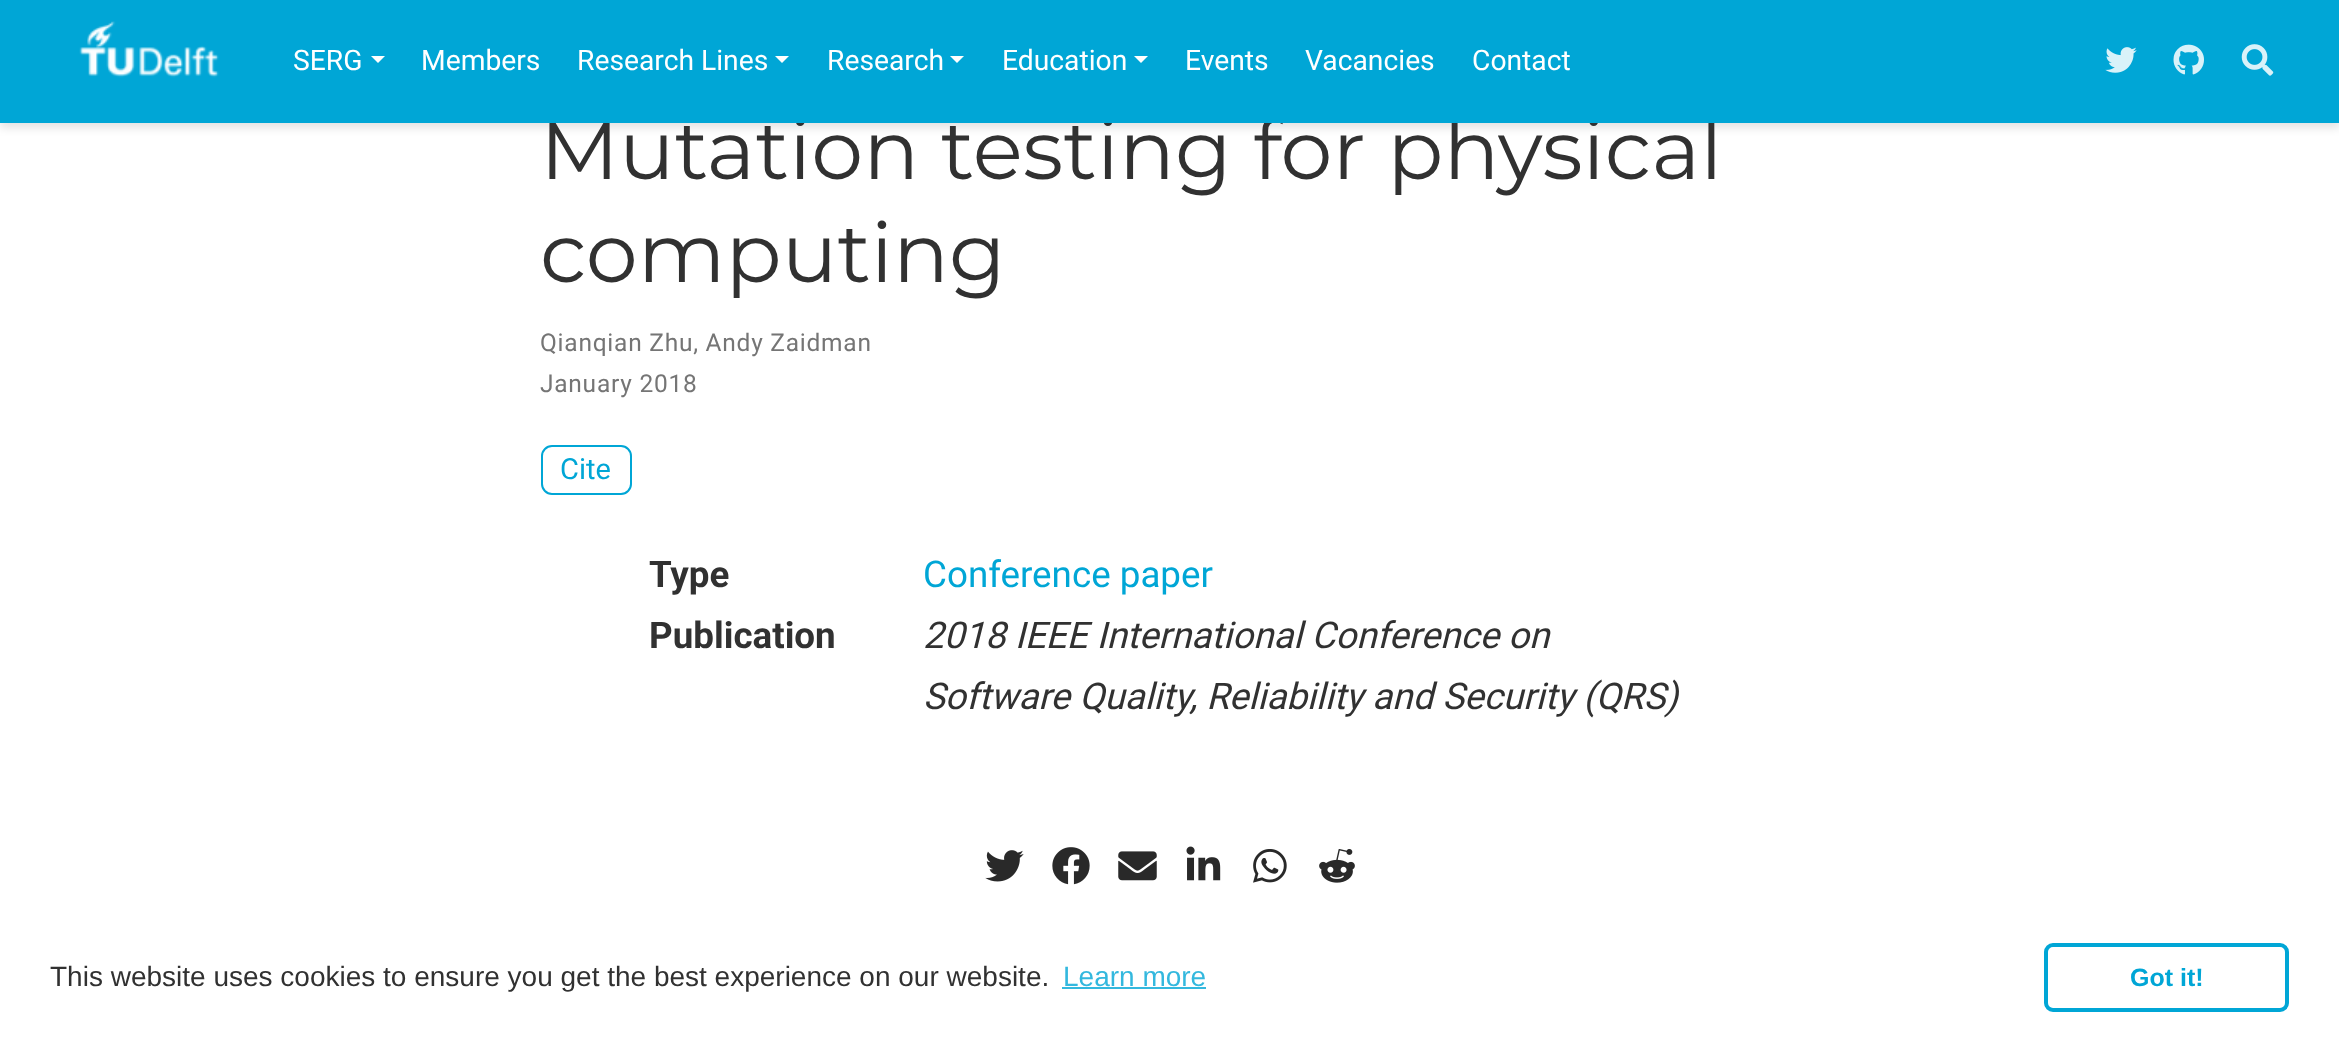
<svg xmlns="http://www.w3.org/2000/svg" width="2339" height="1038" viewBox="0 0 2339 1038">
  <rect width="100%" height="100%" fill="#fff"/>
  <path d="M0 5h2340v123H0z" fill="#0000001c" filter="blur(4.5px)"/>
  <rect x="542" y="446" width="89" height="48" rx="10" fill="none" stroke="#00a6d6" stroke-width="2"/>
  <image x="985" y="850" width="39" height="32" href="img/5.png"/>
  <image x="1052" y="847" width="38" height="38" href="img/6.png"/>
  <image x="1118" y="851" width="39" height="30" href="img/7.png"/>
  <image x="1186" y="846" width="35" height="35" href="img/8.png"/>
  <image x="1253" y="849" width="34" height="34" href="img/9.png"/>
  <image x="1319" y="849" width="36" height="34" href="img/10.png"/>
  <path d="M1062 987h144v2H1062z" fill="#33b8de"/>
  <rect x="2046" y="945" width="241" height="65" rx="7" fill="none" stroke="#00a6d6" stroke-width="4"/>
  <text x="540" y="179" font-family="Montserrat" font-size="82.75" fill="#313131">Mutation testing for physical</text>
  <path d="M0 0h2339v123H0z" fill="#00a6d6"/>
  <image x="79" y="21" width="140" height="57" href="img/1.png"/>
  <image x="2241" y="44" width="33" height="32" href="img/4.png"/>
  <image x="2173" y="44" width="31" height="31" href="img/3.png"/>
  <image x="2105" y="47" width="32" height="26" href="img/2.png"/>
  <g font-family="Roboto" font-size="28.25" fill="#fff">
    <text x="1472" y="70">Contact</text>
    <text x="1305" y="70">Vacancies</text>
    <text x="1185" y="70">Events</text>
  </g>
  <path d="M1134 56H1148L1141 63Z" fill="#fff"/>
  <text x="1002" y="70" font-family="Roboto" font-size="28.25" fill="#fff">Education</text>
  <path d="M950 56H964L957 63Z" fill="#fff"/>
  <text x="827" y="70" font-family="Roboto" font-size="28.25" fill="#fff">Research</text>
  <path d="M775 56H789L782 63Z" fill="#fff"/>
  <g font-family="Roboto" font-size="28.25" fill="#fff">
    <text x="577" y="70">Research Lines</text>
    <text x="421" y="70">Members</text>
  </g>
  <path d="M371 56H385L378 63Z" fill="#fff"/>
  <text x="293" y="70" font-family="Roboto" font-size="28.25" fill="#fff">SERG</text>
  <text x="540" y="282" font-family="Montserrat" font-size="82.75" fill="#313131">computing</text>
  <g font-family="Roboto" font-size="24.5" letter-spacing="0.75" fill="#757575">
    <text x="540" y="351">Qianqian Zhu, Andy Zaidman</text>
    <text x="540" y="392">January 2018</text>
  </g>
  <text x="560" y="479" font-family="Roboto" font-size="29" fill="#00a6d6">Cite</text>
  <text x="649" y="587" font-family="Roboto" font-size="36.75" font-weight="bold" fill="#313131">Type</text>
  <text x="923" y="587" font-family="Roboto" font-size="36.75" fill="#00a6d6">Conference paper</text>
  <text x="649" y="648" font-family="Roboto" font-size="36.75" font-weight="bold" fill="#313131">Publication</text>
  <g font-family="Roboto" font-size="36.75" font-style="italic" fill="#313131">
    <text x="923" y="648">2018 IEEE International Conference on</text>
    <text x="923" y="709">Software Quality, Reliability and Security (QRS)</text>
  </g>
  <text x="50" y="986" font-family="Liberation Sans" font-size="28" fill="#313131">This website uses cookies to ensure you get the best experience on our website.</text>
  <text x="1063" y="986" font-family="Liberation Sans" font-size="28" fill="#33b8de">Learn more</text>
  <text x="2130" y="986" font-family="Liberation Sans" font-size="25" font-weight="bold" fill="#00a6d6">Got it!</text>
</svg>
